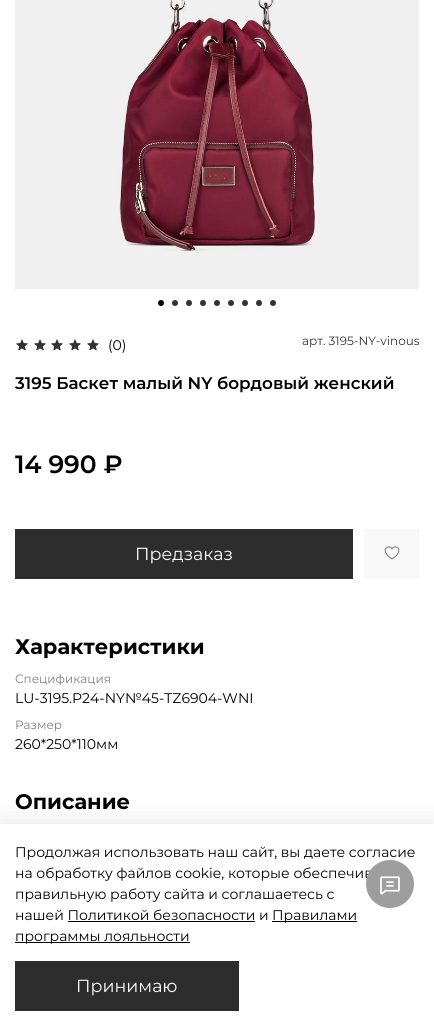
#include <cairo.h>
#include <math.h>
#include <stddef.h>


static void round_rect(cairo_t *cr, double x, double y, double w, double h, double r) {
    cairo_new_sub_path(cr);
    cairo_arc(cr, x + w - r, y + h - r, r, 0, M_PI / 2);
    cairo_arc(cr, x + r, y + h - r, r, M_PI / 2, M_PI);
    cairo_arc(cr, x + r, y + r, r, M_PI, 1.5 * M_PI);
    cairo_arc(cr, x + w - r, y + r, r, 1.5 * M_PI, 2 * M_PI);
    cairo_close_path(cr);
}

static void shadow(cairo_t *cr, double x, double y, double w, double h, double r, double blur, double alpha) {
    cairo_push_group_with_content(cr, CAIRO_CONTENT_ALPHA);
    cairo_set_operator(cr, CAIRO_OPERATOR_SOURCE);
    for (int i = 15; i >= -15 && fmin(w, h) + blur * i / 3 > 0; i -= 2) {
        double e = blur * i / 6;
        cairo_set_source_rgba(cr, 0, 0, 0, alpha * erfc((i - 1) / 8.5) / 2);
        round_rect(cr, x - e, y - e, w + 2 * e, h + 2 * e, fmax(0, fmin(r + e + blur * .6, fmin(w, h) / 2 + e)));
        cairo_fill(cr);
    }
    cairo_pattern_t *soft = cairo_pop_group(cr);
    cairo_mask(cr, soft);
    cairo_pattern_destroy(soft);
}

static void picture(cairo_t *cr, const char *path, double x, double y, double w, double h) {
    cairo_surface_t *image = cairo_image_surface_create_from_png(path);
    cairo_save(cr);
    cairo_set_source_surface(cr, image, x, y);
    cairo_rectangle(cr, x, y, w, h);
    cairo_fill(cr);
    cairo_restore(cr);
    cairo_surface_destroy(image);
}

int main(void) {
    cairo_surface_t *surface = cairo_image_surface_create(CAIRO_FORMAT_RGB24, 434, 1028);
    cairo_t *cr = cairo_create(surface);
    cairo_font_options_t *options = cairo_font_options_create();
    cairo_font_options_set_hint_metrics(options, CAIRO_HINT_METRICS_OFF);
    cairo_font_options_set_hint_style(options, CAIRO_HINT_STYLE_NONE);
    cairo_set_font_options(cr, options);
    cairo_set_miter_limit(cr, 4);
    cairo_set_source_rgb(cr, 1, 1, 1);
    cairo_paint(cr);
    picture(cr, "img1.png", 15, 0, 404, 289);
    cairo_set_source_rgb(cr, 0, 0, 0);
    cairo_arc(cr, 161, 303, 3, 0, 2 * M_PI);
    cairo_fill(cr);
    cairo_set_source_rgb(cr, 0.2, 0.2, 0.2);
    cairo_arc(cr, 175, 303, 3, 0, 2 * M_PI);
    cairo_fill(cr);
    cairo_arc(cr, 189, 303, 3, 0, 2 * M_PI);
    cairo_fill(cr);
    cairo_arc(cr, 203, 303, 3, 0, 2 * M_PI);
    cairo_fill(cr);
    cairo_arc(cr, 217, 303, 3, 0, 2 * M_PI);
    cairo_fill(cr);
    cairo_arc(cr, 231, 303, 3, 0, 2 * M_PI);
    cairo_fill(cr);
    cairo_arc(cr, 245, 303, 3, 0, 2 * M_PI);
    cairo_fill(cr);
    cairo_arc(cr, 259, 303, 3, 0, 2 * M_PI);
    cairo_fill(cr);
    cairo_arc(cr, 273, 303, 3, 0, 2 * M_PI);
    cairo_fill(cr);
    picture(cr, "img2.png", 16, 339, 12, 12);
    picture(cr, "img2.png", 34, 339, 12, 12);
    picture(cr, "img2.png", 51, 339, 12, 12);
    picture(cr, "img2.png", 69, 339, 12, 12);
    picture(cr, "img2.png", 87, 339, 12, 12);
    cairo_select_font_face(cr, "Montserrat", CAIRO_FONT_SLANT_NORMAL, CAIRO_FONT_WEIGHT_NORMAL);
    cairo_set_font_size(cr, 14);
    cairo_set_source_rgb(cr, 0, 0, 0);
    cairo_move_to(cr, 108, 350);
    cairo_show_text(cr, "(0)");
    cairo_set_font_size(cr, 12);
    cairo_set_source_rgb(cr, 0.2, 0.2, 0.2);
    cairo_move_to(cr, 302, 345);
    cairo_show_text(cr, "арт. 3195-NY-vinous");
    cairo_select_font_face(cr, "Montserrat SemiBold", CAIRO_FONT_SLANT_NORMAL, CAIRO_FONT_WEIGHT_NORMAL);
    cairo_set_font_size(cr, 16.8);
    cairo_set_source_rgb(cr, 0, 0, 0);
    cairo_move_to(cr, 15, 389);
    cairo_show_text(cr, "3195 Баскет малый NY бордовый женский");
    cairo_set_font_size(cr, 25);
    cairo_move_to(cr, 15, 473);
    cairo_show_text(cr, "14 990 ₽");
    cairo_set_source_rgb(cr, 0.176, 0.176, 0.176);
    cairo_rectangle(cr, 15, 529, 338, 50);
    cairo_fill(cr);
    cairo_select_font_face(cr, "Montserrat", CAIRO_FONT_SLANT_NORMAL, CAIRO_FONT_WEIGHT_NORMAL);
    cairo_set_font_size(cr, 17.5);
    cairo_set_source_rgb(cr, 1, 1, 1);
    cairo_move_to(cr, 135, 560);
    cairo_show_text(cr, "Предзаказ");
    cairo_set_source_rgb(cr, 0.969, 0.969, 0.969);
    cairo_rectangle(cr, 364, 529, 55, 50);
    cairo_fill(cr);
    picture(cr, "img3.png", 384, 546, 16, 14);
    cairo_select_font_face(cr, "Montserrat", CAIRO_FONT_SLANT_NORMAL, CAIRO_FONT_WEIGHT_BOLD);
    cairo_set_font_size(cr, 21);
    cairo_set_source_rgb(cr, 0, 0, 0);
    cairo_move_to(cr, 15, 654);
    cairo_show_text(cr, "Характеристики");
    cairo_select_font_face(cr, "Montserrat", CAIRO_FONT_SLANT_NORMAL, CAIRO_FONT_WEIGHT_NORMAL);
    cairo_set_font_size(cr, 12);
    cairo_set_source_rgb(cr, 0.502, 0.502, 0.502);
    cairo_move_to(cr, 15, 683);
    cairo_show_text(cr, "Спецификация");
    cairo_set_font_size(cr, 14);
    cairo_set_source_rgb(cr, 0, 0, 0);
    cairo_move_to(cr, 15, 703);
    cairo_show_text(cr, "LU-3195.P24-NY№45-TZ6904-WNI");
    cairo_set_font_size(cr, 12);
    cairo_set_source_rgb(cr, 0.502, 0.502, 0.502);
    cairo_move_to(cr, 15, 729);
    cairo_show_text(cr, "Размер");
    cairo_set_font_size(cr, 14);
    cairo_set_source_rgb(cr, 0, 0, 0);
    cairo_move_to(cr, 15, 749);
    cairo_show_text(cr, "260*250*110мм");
    cairo_select_font_face(cr, "Montserrat", CAIRO_FONT_SLANT_NORMAL, CAIRO_FONT_WEIGHT_BOLD);
    cairo_set_font_size(cr, 21);
    cairo_move_to(cr, 15, 809);
    cairo_show_text(cr, "Описание");
    cairo_set_source_rgb(cr, 0, 0, 0);
    shadow(cr, -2, 821, 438, 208, 0, 11.5, 0.09);
    cairo_set_source_rgb(cr, 1, 1, 1);
    cairo_rectangle(cr, 0, 824, 434, 204);
    cairo_fill(cr);
    cairo_select_font_face(cr, "Montserrat", CAIRO_FONT_SLANT_NORMAL, CAIRO_FONT_WEIGHT_NORMAL);
    cairo_set_font_size(cr, 14);
    cairo_set_source_rgb(cr, 0, 0, 0);
    cairo_move_to(cr, 15, 857);
    cairo_show_text(cr, "Продолжая использовать наш сайт, вы даете согласие");
    cairo_move_to(cr, 15, 878);
    cairo_show_text(cr, "на обработку файлов cookie, которые обеспечив");
    cairo_move_to(cr, 15, 899);
    cairo_show_text(cr, "правильную работу сайта и соглашаетесь с");
    cairo_move_to(cr, 15, 920);
    cairo_show_text(cr, "нашей Политикой безопасности и");
    cairo_rectangle(cr, 272, 921, 85, 1);
    cairo_fill(cr);
    cairo_move_to(cr, 272, 920);
    cairo_show_text(cr, "Правилами");
    cairo_rectangle(cr, 68, 921, 187, 1);
    cairo_fill(cr);
    cairo_rectangle(cr, 15, 942, 175, 1);
    cairo_fill(cr);
    cairo_move_to(cr, 15, 941);
    cairo_show_text(cr, "программы лояльности");
    cairo_set_source_rgb(cr, 0.176, 0.176, 0.176);
    cairo_rectangle(cr, 15, 961, 224, 50);
    cairo_fill(cr);
    cairo_set_font_size(cr, 17.5);
    cairo_set_source_rgb(cr, 1, 1, 1);
    cairo_move_to(cr, 76, 992);
    cairo_show_text(cr, "Принимаю");
    cairo_set_source_rgb(cr, 0.62, 0.62, 0.62);
    cairo_new_path(cr);
    cairo_arc(cr, 390, 884, 24, 0, 2 * M_PI);
    cairo_fill(cr);
    picture(cr, "img4.png", 380, 876, 20, 19);
    cairo_surface_write_to_png(surface, "page.png");
    cairo_font_options_destroy(options);
    cairo_destroy(cr);
    cairo_surface_destroy(surface);
    return 0;
}
